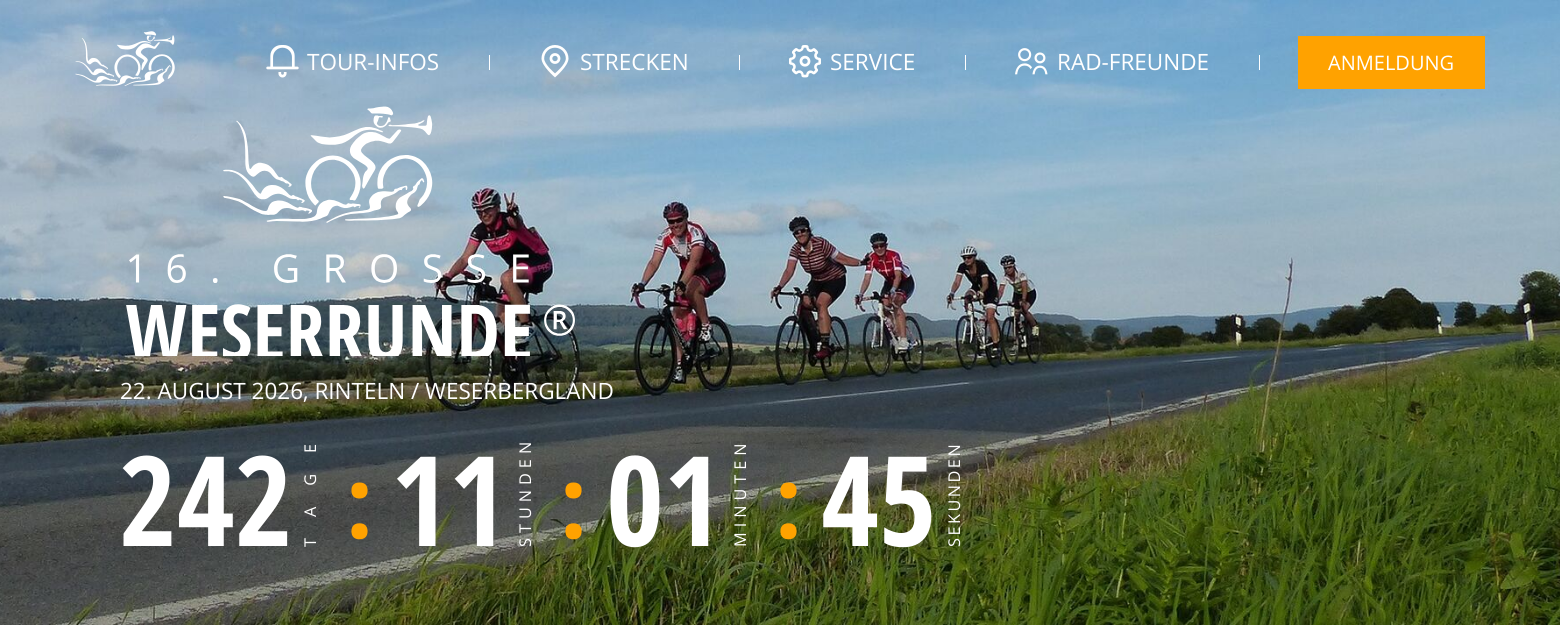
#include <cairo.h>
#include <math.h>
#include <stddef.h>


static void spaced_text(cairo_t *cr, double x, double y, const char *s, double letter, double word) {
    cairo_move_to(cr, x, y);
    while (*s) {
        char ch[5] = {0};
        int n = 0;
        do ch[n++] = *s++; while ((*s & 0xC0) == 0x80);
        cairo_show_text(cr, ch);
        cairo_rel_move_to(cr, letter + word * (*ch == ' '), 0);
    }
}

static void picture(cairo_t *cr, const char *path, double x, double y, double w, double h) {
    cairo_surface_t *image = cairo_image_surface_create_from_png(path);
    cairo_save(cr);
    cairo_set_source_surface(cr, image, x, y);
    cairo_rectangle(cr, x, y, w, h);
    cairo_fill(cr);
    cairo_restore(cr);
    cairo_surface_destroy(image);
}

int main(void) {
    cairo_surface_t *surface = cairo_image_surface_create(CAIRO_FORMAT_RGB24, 1560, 638);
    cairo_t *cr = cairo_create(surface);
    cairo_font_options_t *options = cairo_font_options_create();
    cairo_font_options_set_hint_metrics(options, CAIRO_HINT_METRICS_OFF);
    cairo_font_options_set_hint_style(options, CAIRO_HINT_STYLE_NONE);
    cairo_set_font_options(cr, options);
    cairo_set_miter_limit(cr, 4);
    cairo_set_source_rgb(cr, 1, 1, 1);
    cairo_paint(cr);
    picture(cr, "img6.png", 0, 0, 1560, 625);
    picture(cr, "img1.png", 75, 31, 100, 55);
    picture(cr, "img2.png", 266, 45, 33, 33);
    cairo_select_font_face(cr, "Open Sans", CAIRO_FONT_SLANT_NORMAL, CAIRO_FONT_WEIGHT_NORMAL);
    cairo_set_font_size(cr, 22.5);
    cairo_set_source_rgb(cr, 1, 1, 1);
    cairo_move_to(cr, 307, 70);
    cairo_show_text(cr, "TOUR-INFOS");
    cairo_rectangle(cr, 489, 55, 1, 15);
    cairo_fill(cr);
    picture(cr, "img3.png", 541, 45, 28, 33);
    cairo_move_to(cr, 580, 70);
    cairo_show_text(cr, "STRECKEN");
    cairo_rectangle(cr, 739, 55, 1, 15);
    cairo_fill(cr);
    picture(cr, "img4.png", 789, 45, 32, 33);
    cairo_move_to(cr, 830, 70);
    cairo_show_text(cr, "SERVICE");
    cairo_rectangle(cr, 965, 55, 1, 15);
    cairo_fill(cr);
    picture(cr, "img5.png", 1015, 48, 33, 27);
    cairo_move_to(cr, 1057, 70);
    cairo_show_text(cr, "RAD-FREUNDE");
    cairo_rectangle(cr, 1259, 55, 1, 15);
    cairo_fill(cr);
    cairo_set_source_rgb(cr, 1, 0.635, 0);
    cairo_rectangle(cr, 1298, 36, 187, 53);
    cairo_fill(cr);
    cairo_set_font_size(cr, 20);
    cairo_set_source_rgb(cr, 1, 1, 1);
    cairo_move_to(cr, 1328, 70);
    cairo_show_text(cr, "ANMELDUNG");
    picture(cr, "img7.png", 126, 106, 449, 250);
    cairo_set_font_size(cr, 22.5);
    cairo_move_to(cr, 120, 399);
    cairo_show_text(cr, "22. AUGUST 2026, RINTELN / WESERBERGLAND");
    cairo_select_font_face(cr, "Open Sans Condensed", CAIRO_FONT_SLANT_NORMAL, CAIRO_FONT_WEIGHT_BOLD);
    cairo_set_font_size(cr, 125);
    cairo_move_to(cr, 119, 546);
    cairo_show_text(cr, "242");
    cairo_select_font_face(cr, "Open Sans", CAIRO_FONT_SLANT_NORMAL, CAIRO_FONT_WEIGHT_NORMAL);
    cairo_set_font_size(cr, 16.25);
    cairo_save(cr);
    cairo_translate(cr, 316, 547);
    cairo_rotate(cr, -90 * M_PI / 180);
    spaced_text(cr, 0, 0, "TAGE", 21, 0);
    cairo_restore(cr);
    cairo_select_font_face(cr, "Open Sans Condensed", CAIRO_FONT_SLANT_NORMAL, CAIRO_FONT_WEIGHT_BOLD);
    cairo_set_font_size(cr, 100);
    cairo_set_source_rgb(cr, 1, 0.635, 0);
    cairo_move_to(cr, 346, 538);
    cairo_show_text(cr, ":");
    cairo_set_font_size(cr, 125);
    cairo_set_source_rgb(cr, 1, 1, 1);
    cairo_move_to(cr, 391, 546);
    cairo_show_text(cr, "11");
    cairo_select_font_face(cr, "Open Sans", CAIRO_FONT_SLANT_NORMAL, CAIRO_FONT_WEIGHT_NORMAL);
    cairo_set_font_size(cr, 16.25);
    cairo_save(cr);
    cairo_translate(cr, 531, 547);
    cairo_rotate(cr, -90 * M_PI / 180);
    spaced_text(cr, 0, 0, "STUNDEN", 5, 0);
    cairo_restore(cr);
    cairo_select_font_face(cr, "Open Sans Condensed", CAIRO_FONT_SLANT_NORMAL, CAIRO_FONT_WEIGHT_BOLD);
    cairo_set_font_size(cr, 100);
    cairo_set_source_rgb(cr, 1, 0.635, 0);
    cairo_move_to(cr, 560, 538);
    cairo_show_text(cr, ":");
    cairo_set_font_size(cr, 125);
    cairo_set_source_rgb(cr, 1, 1, 1);
    cairo_move_to(cr, 606, 546);
    cairo_show_text(cr, "01");
    cairo_select_font_face(cr, "Open Sans", CAIRO_FONT_SLANT_NORMAL, CAIRO_FONT_WEIGHT_NORMAL);
    cairo_set_font_size(cr, 16.25);
    cairo_save(cr);
    cairo_translate(cr, 746, 547);
    cairo_rotate(cr, -90 * M_PI / 180);
    spaced_text(cr, 0, 0, "MINUTEN", 5, 0);
    cairo_restore(cr);
    cairo_select_font_face(cr, "Open Sans Condensed", CAIRO_FONT_SLANT_NORMAL, CAIRO_FONT_WEIGHT_BOLD);
    cairo_set_font_size(cr, 100);
    cairo_set_source_rgb(cr, 1, 0.635, 0);
    cairo_move_to(cr, 775, 538);
    cairo_show_text(cr, ":");
    cairo_set_font_size(cr, 125);
    cairo_set_source_rgb(cr, 1, 1, 1);
    cairo_move_to(cr, 821, 546);
    cairo_show_text(cr, "45");
    cairo_select_font_face(cr, "Open Sans", CAIRO_FONT_SLANT_NORMAL, CAIRO_FONT_WEIGHT_NORMAL);
    cairo_set_font_size(cr, 16.25);
    cairo_save(cr);
    cairo_translate(cr, 960, 547);
    cairo_rotate(cr, -90 * M_PI / 180);
    spaced_text(cr, 0, 0, "SEKUNDEN", 2.5, 0);
    cairo_restore(cr);
    cairo_surface_write_to_png(surface, "page.png");
    cairo_font_options_destroy(options);
    cairo_destroy(cr);
    cairo_surface_destroy(surface);
    return 0;
}
